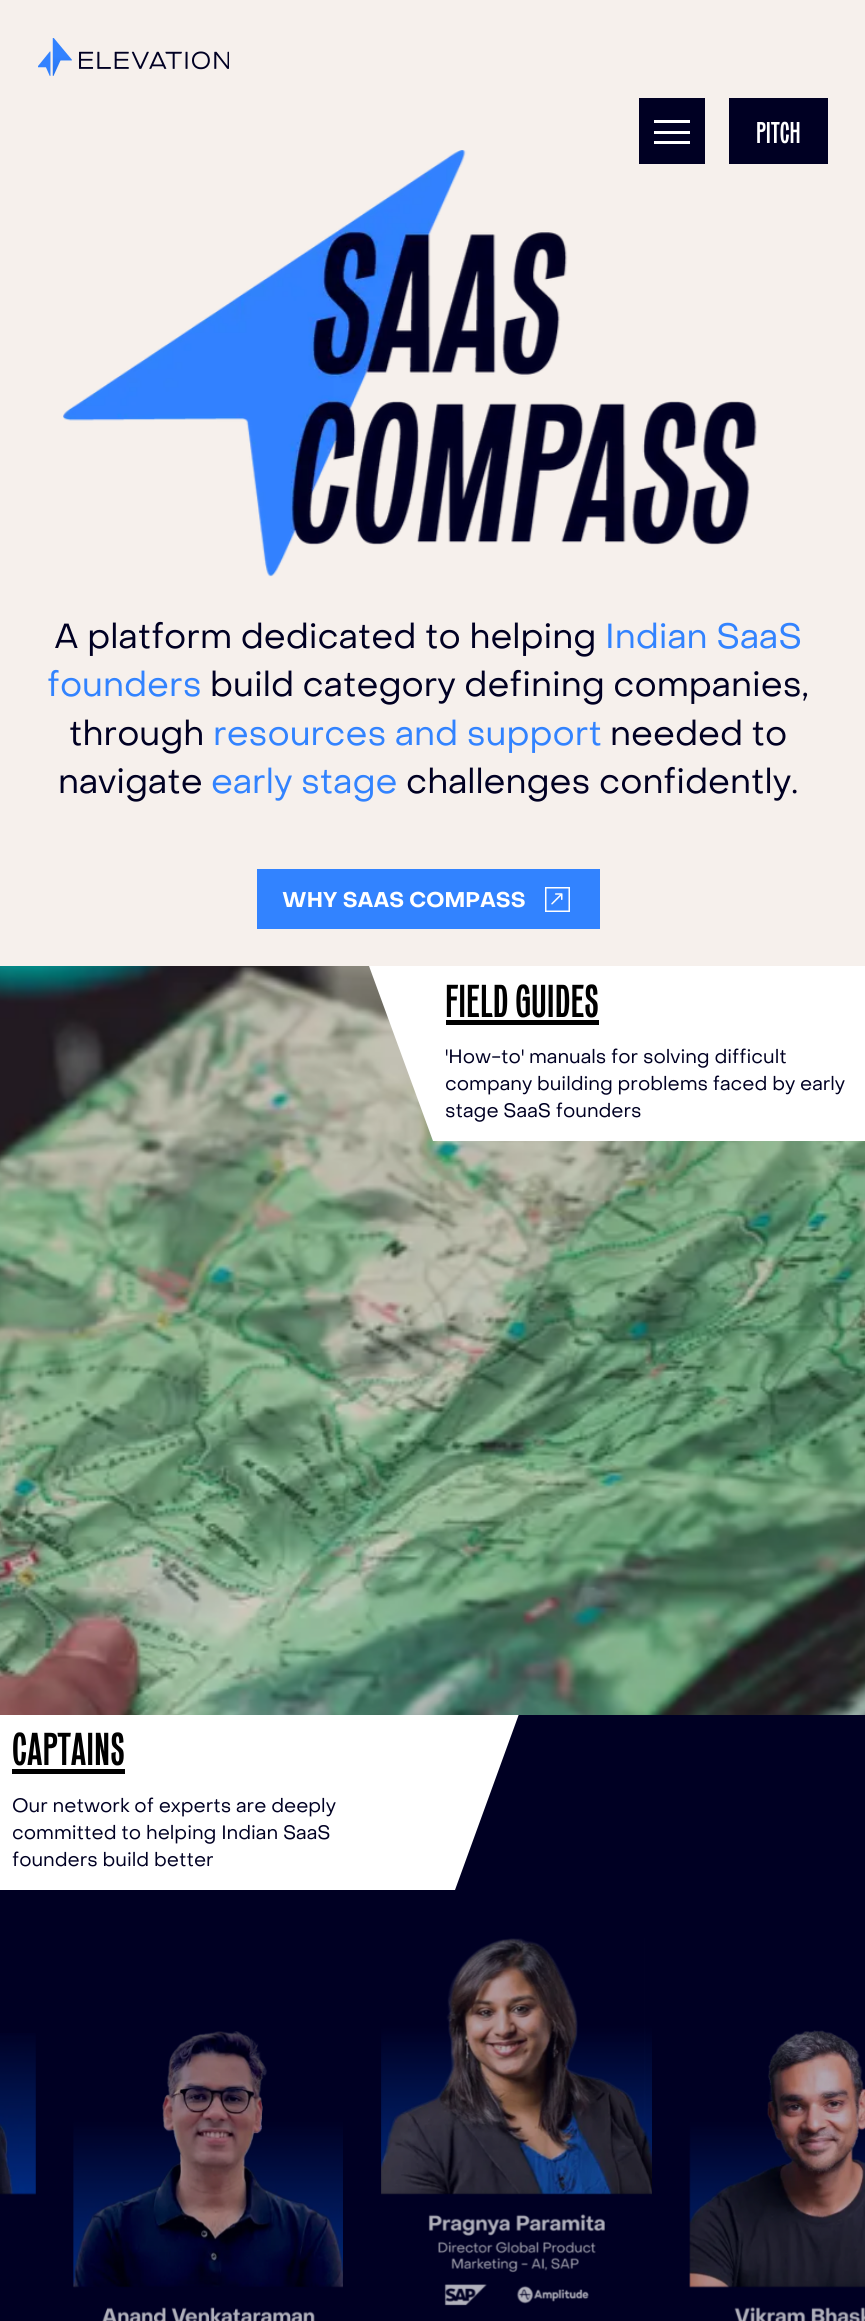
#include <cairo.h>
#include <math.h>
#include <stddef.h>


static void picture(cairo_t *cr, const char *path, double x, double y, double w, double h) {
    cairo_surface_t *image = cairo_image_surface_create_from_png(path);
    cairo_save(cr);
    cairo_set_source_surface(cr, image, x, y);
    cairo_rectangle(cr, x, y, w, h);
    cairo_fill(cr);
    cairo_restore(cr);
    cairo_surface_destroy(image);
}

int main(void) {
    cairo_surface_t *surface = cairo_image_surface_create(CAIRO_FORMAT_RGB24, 865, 2321);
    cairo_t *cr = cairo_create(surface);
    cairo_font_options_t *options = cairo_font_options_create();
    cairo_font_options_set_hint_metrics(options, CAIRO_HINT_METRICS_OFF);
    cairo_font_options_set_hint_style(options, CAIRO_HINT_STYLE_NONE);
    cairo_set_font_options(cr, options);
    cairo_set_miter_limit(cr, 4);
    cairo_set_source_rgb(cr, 0.961, 0.941, 0.922);
    cairo_paint(cr);
    picture(cr, "img1.png", 38, 38, 191, 38);
    picture(cr, "img2.png", 63, 150, 694, 427);
    cairo_set_source_rgb(cr, 0, 0, 0.137);
    cairo_rectangle(cr, 639, 98, 66, 66);
    cairo_fill(cr);
    cairo_set_source_rgb(cr, 1, 1, 1);
    cairo_rectangle(cr, 654, 120, 36, 3);
    cairo_fill(cr);
    cairo_rectangle(cr, 654, 131, 36, 3);
    cairo_fill(cr);
    cairo_rectangle(cr, 654, 141, 36, 3);
    cairo_fill(cr);
    cairo_set_source_rgb(cr, 0, 0, 0.137);
    cairo_rectangle(cr, 729, 98, 99, 66);
    cairo_fill(cr);
    cairo_select_font_face(cr, "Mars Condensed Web", CAIRO_FONT_SLANT_NORMAL, CAIRO_FONT_WEIGHT_NORMAL);
    cairo_set_font_size(cr, 30);
    cairo_set_source_rgb(cr, 1, 1, 1);
    cairo_move_to(cr, 756, 143);
    cairo_show_text(cr, "PITCH");
    cairo_select_font_face(cr, "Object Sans", CAIRO_FONT_SLANT_NORMAL, CAIRO_FONT_WEIGHT_NORMAL);
    cairo_set_font_size(cr, 34.6);
    cairo_set_source_rgb(cr, 0, 0, 0.137);
    cairo_move_to(cr, 54, 648);
    cairo_show_text(cr, "A platform dedicated to helping");
    cairo_set_source_rgb(cr, 0.196, 0.514, 1);
    cairo_move_to(cr, 605, 648);
    cairo_show_text(cr, "Indian SaaS");
    cairo_move_to(cr, 47, 696);
    cairo_show_text(cr, "founders");
    cairo_set_source_rgb(cr, 0, 0, 0.137);
    cairo_move_to(cr, 210, 696);
    cairo_show_text(cr, "build category defining companies,");
    cairo_move_to(cr, 69, 745);
    cairo_show_text(cr, "through");
    cairo_set_source_rgb(cr, 0.196, 0.514, 1);
    cairo_move_to(cr, 213, 745);
    cairo_show_text(cr, "resources and support");
    cairo_set_source_rgb(cr, 0, 0, 0.137);
    cairo_move_to(cr, 610, 745);
    cairo_show_text(cr, "needed to");
    cairo_move_to(cr, 58, 793);
    cairo_show_text(cr, "navigate");
    cairo_set_source_rgb(cr, 0.196, 0.514, 1);
    cairo_move_to(cr, 211, 793);
    cairo_show_text(cr, "early stage");
    cairo_set_source_rgb(cr, 0, 0, 0.137);
    cairo_move_to(cr, 406, 793);
    cairo_show_text(cr, "challenges confidently.");
    cairo_set_source_rgb(cr, 0.196, 0.514, 1);
    cairo_rectangle(cr, 257, 869, 343, 60);
    cairo_fill(cr);
    cairo_select_font_face(cr, "Object Sans", CAIRO_FONT_SLANT_NORMAL, CAIRO_FONT_WEIGHT_BOLD);
    cairo_set_font_size(cr, 21);
    cairo_set_source_rgb(cr, 1, 1, 1);
    cairo_move_to(cr, 282, 907);
    cairo_show_text(cr, "WHY SAAS COMPASS");
    picture(cr, "img3.png", 545, 887, 25, 25);
    picture(cr, "img4.png", 0, 966, 865, 749);
    cairo_new_path(cr);
    cairo_move_to(cr, 369, 966);
    cairo_line_to(cr, 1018, 966);
    cairo_line_to(cr, 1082, 1141);
    cairo_line_to(cr, 433, 1141);
    cairo_close_path(cr);
    cairo_fill(cr);
    cairo_select_font_face(cr, "Mars Condensed Web", CAIRO_FONT_SLANT_NORMAL, CAIRO_FONT_WEIGHT_NORMAL);
    cairo_set_font_size(cr, 46);
    cairo_set_source_rgb(cr, 0, 0, 0);
    cairo_move_to(cr, 445, 1017);
    cairo_show_text(cr, "FIELD GUIDES");
    cairo_rectangle(cr, 446, 1020, 153, 5);
    cairo_fill(cr);
    cairo_select_font_face(cr, "Object Sans", CAIRO_FONT_SLANT_NORMAL, CAIRO_FONT_WEIGHT_NORMAL);
    cairo_set_font_size(cr, 19.2);
    cairo_set_source_rgb(cr, 0, 0, 0.137);
    cairo_move_to(cr, 445, 1063);
    cairo_show_text(cr, "'How-to' manuals for solving difficult");
    cairo_move_to(cr, 445, 1090);
    cairo_show_text(cr, "company building problems faced by early");
    cairo_move_to(cr, 445, 1117);
    cairo_show_text(cr, "stage SaaS founders");
    cairo_rectangle(cr, 0, 1715, 865, 606);
    cairo_fill(cr);
    cairo_save(cr);
    cairo_rectangle(cr, 0, 1715, 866, 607);
    cairo_clip(cr);
    cairo_set_source_rgb(cr, 1, 1, 1);
    cairo_new_path(cr);
    cairo_move_to(cr, 0, 1714);
    cairo_line_to(cr, 519, 1714);
    cairo_line_to(cr, 455, 1890);
    cairo_line_to(cr, -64, 1890);
    cairo_close_path(cr);
    cairo_fill(cr);
    cairo_restore(cr);
    cairo_select_font_face(cr, "Mars Condensed Web", CAIRO_FONT_SLANT_NORMAL, CAIRO_FONT_WEIGHT_NORMAL);
    cairo_set_font_size(cr, 46);
    cairo_set_source_rgb(cr, 0, 0, 0);
    cairo_move_to(cr, 12, 1765);
    cairo_show_text(cr, "CAPTAINS");
    cairo_rectangle(cr, 12, 1769, 113, 5);
    cairo_fill(cr);
    cairo_select_font_face(cr, "Object Sans", CAIRO_FONT_SLANT_NORMAL, CAIRO_FONT_WEIGHT_NORMAL);
    cairo_set_font_size(cr, 19.2);
    cairo_set_source_rgb(cr, 0, 0, 0.137);
    cairo_move_to(cr, 12, 1812);
    cairo_show_text(cr, "Our network of experts are deeply");
    cairo_move_to(cr, 12, 1839);
    cairo_show_text(cr, "committed to helping Indian SaaS");
    cairo_move_to(cr, 12, 1866);
    cairo_show_text(cr, "founders build better");
    picture(cr, "img5.png", 0, 2033, 36, 162);
    picture(cr, "img6.png", 73, 2031, 270, 290);
    picture(cr, "img7.png", 381, 1938, 271, 368);
    picture(cr, "img8.png", 689, 2030, 176, 291);
    cairo_surface_write_to_png(surface, "page.png");
    cairo_font_options_destroy(options);
    cairo_destroy(cr);
    cairo_surface_destroy(surface);
    return 0;
}
